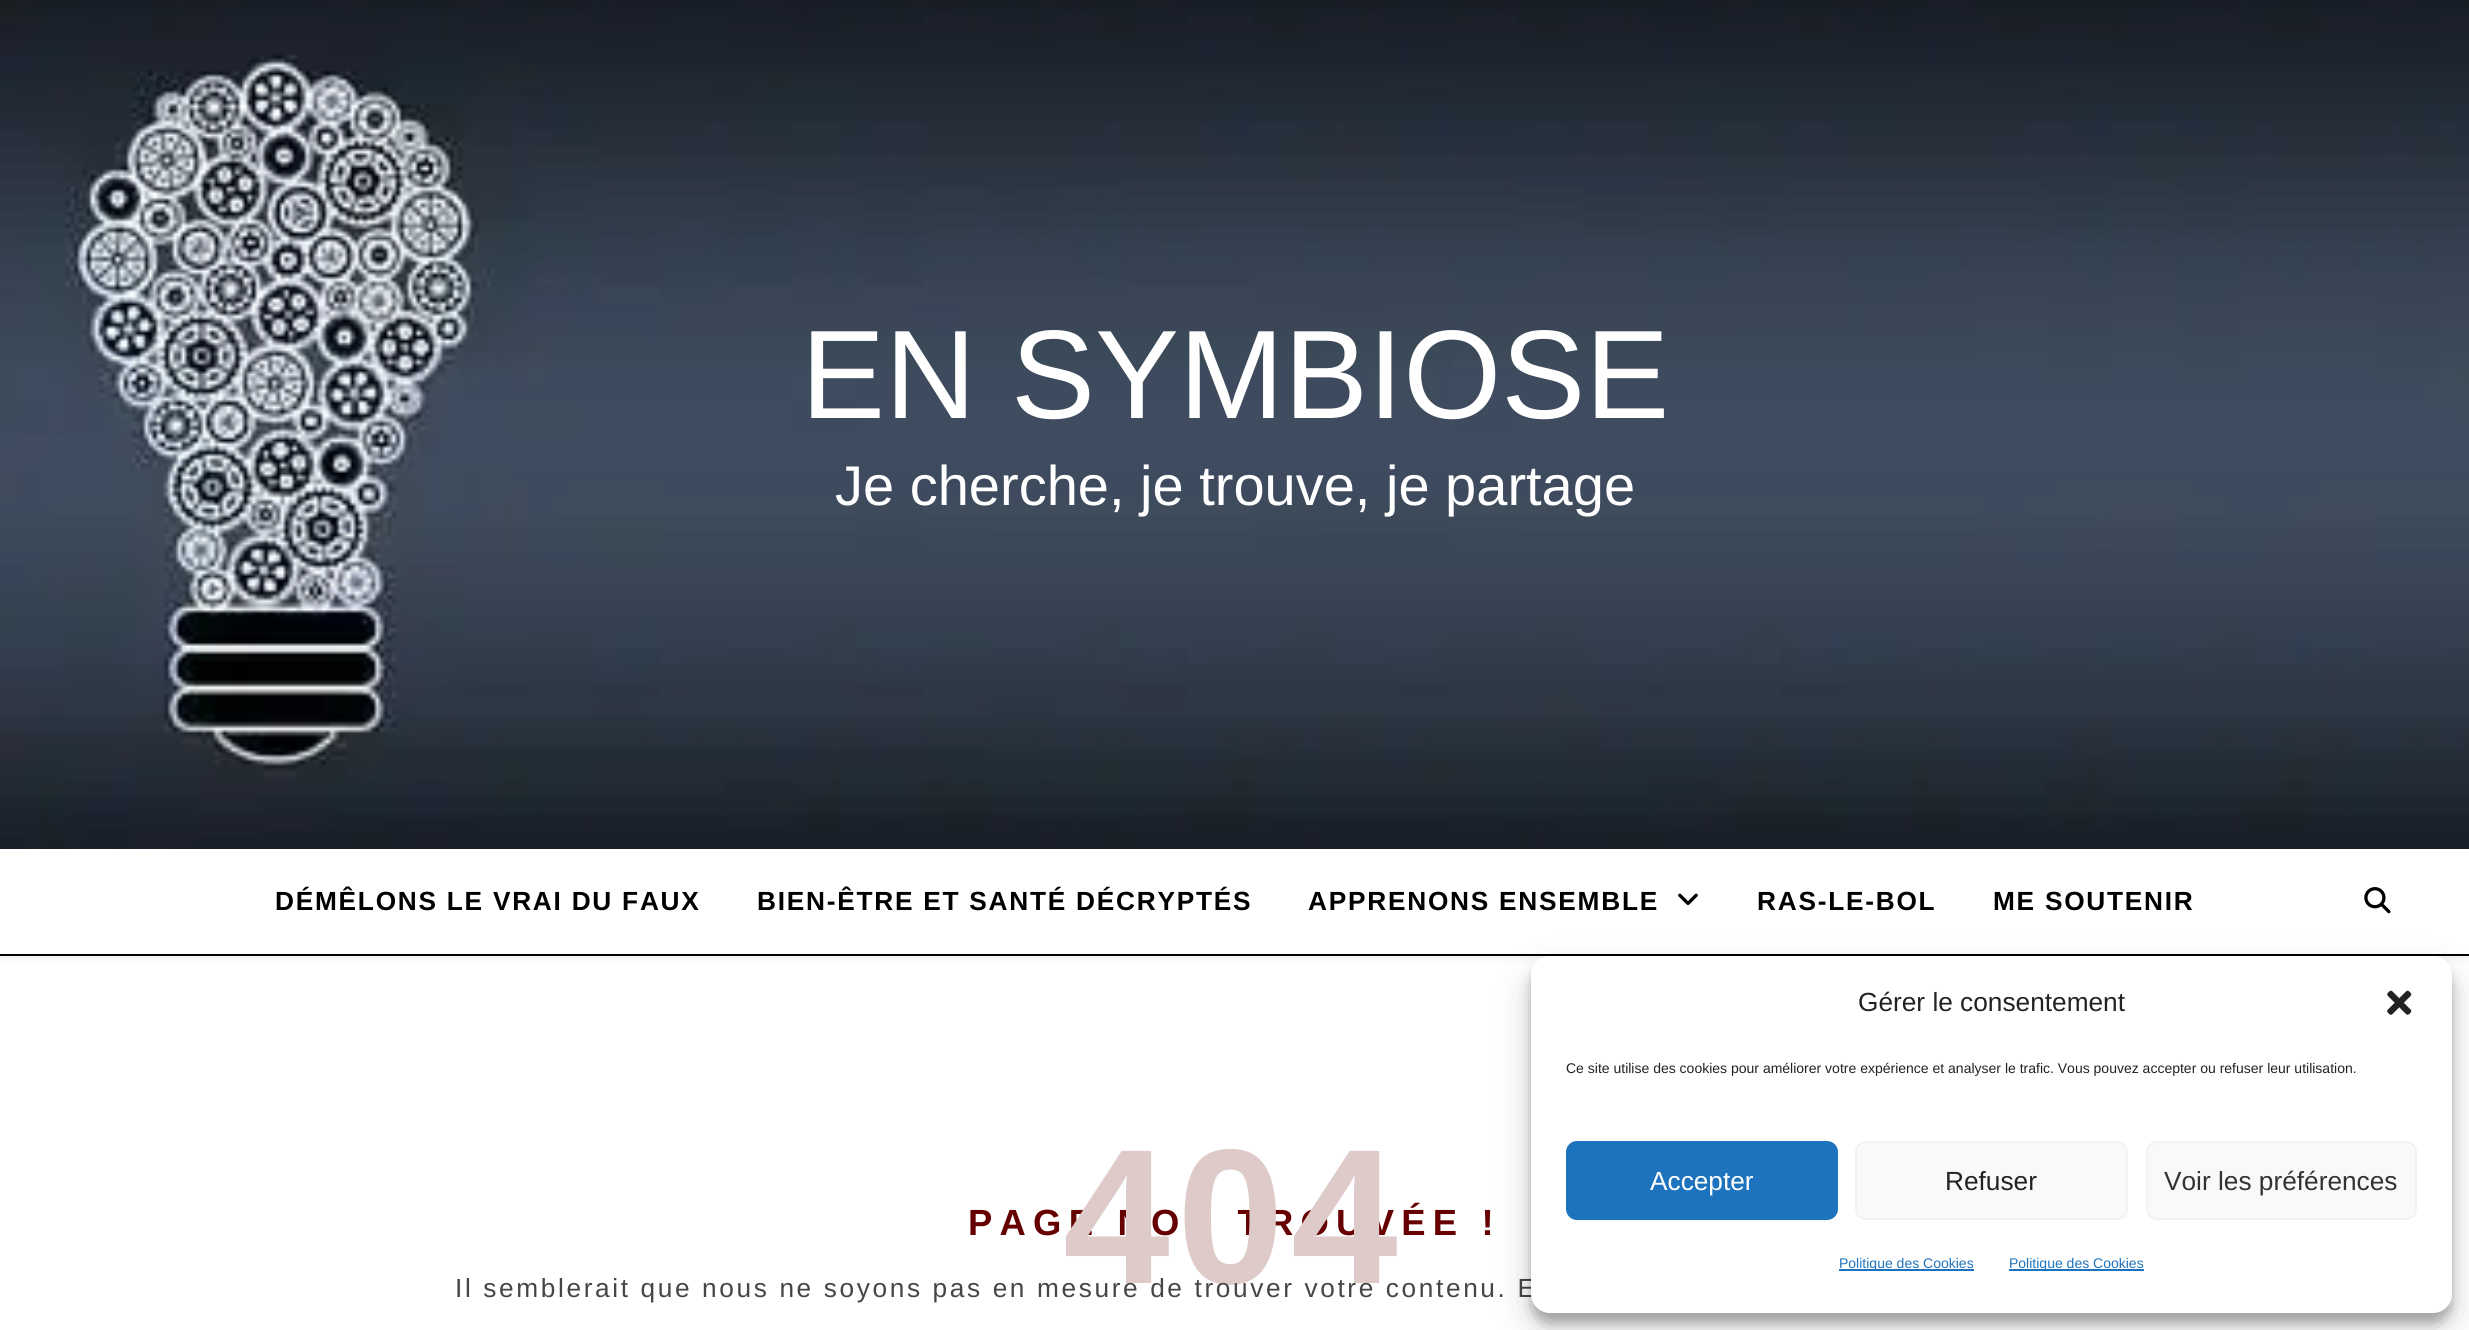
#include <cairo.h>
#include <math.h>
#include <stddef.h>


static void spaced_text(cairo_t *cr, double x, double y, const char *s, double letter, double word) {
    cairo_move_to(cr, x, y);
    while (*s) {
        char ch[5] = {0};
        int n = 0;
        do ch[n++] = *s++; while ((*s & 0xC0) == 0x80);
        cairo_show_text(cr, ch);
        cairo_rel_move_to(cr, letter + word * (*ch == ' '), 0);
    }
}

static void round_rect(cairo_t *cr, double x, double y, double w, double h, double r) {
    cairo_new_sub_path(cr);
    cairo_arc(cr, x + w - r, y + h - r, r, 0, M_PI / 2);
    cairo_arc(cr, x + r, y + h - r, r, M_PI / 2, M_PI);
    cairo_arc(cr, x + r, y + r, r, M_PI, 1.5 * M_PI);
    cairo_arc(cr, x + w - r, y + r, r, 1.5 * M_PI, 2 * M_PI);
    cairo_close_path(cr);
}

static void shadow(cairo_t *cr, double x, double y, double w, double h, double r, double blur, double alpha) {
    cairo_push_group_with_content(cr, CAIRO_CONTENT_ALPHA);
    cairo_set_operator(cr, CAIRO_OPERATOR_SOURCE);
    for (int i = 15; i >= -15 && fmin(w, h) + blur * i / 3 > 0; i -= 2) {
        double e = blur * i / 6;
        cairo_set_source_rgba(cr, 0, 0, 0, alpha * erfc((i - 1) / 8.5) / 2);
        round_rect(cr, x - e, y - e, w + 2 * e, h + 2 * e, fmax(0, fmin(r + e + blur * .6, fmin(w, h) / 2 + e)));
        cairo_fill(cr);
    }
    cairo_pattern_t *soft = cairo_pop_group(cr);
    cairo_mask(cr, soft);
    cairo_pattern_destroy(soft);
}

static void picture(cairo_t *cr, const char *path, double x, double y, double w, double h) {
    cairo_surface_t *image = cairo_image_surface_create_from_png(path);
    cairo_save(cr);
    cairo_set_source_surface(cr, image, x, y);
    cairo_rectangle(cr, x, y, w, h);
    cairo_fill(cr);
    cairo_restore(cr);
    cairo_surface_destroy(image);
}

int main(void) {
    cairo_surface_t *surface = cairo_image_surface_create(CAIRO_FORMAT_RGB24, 2469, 1330);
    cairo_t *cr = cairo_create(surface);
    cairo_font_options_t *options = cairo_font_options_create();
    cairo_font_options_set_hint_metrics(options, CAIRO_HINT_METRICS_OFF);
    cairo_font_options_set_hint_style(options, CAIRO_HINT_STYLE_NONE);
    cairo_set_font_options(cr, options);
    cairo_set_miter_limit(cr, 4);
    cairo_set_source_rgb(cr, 1, 1, 1);
    cairo_paint(cr);
    picture(cr, "img1.png", 0, 0, 2469, 849);
    cairo_select_font_face(cr, "Liberation Sans", CAIRO_FONT_SLANT_NORMAL, CAIRO_FONT_WEIGHT_NORMAL);
    cairo_set_font_size(cr, 126);
    cairo_set_source_rgb(cr, 1, 1, 1);
    cairo_move_to(cr, 801, 418);
    cairo_show_text(cr, "EN SYMBIOSE");
    cairo_set_font_size(cr, 56);
    cairo_move_to(cr, 835, 505);
    cairo_show_text(cr, "Je cherche, je trouve, je partage");
    cairo_set_source_rgb(cr, 0, 0, 0);
    shadow(cr, 0, 851, 2469, 106, 0, 4.5, 0.1);
    cairo_set_source_rgb(cr, 1, 1, 1);
    cairo_rectangle(cr, 0, 849, 2469, 105);
    cairo_fill(cr);
    cairo_set_source_rgb(cr, 0, 0, 0);
    cairo_rectangle(cr, 0, 954, 2469, 2);
    cairo_fill(cr);
    cairo_select_font_face(cr, "Liberation Sans", CAIRO_FONT_SLANT_NORMAL, CAIRO_FONT_WEIGHT_BOLD);
    cairo_set_font_size(cr, 26.25);
    spaced_text(cr, 275, 910, "DÉMÊLONS LE VRAI DU FAUX", 1.75, 0);
    spaced_text(cr, 757, 910, "BIEN-ÊTRE ET SANTÉ DÉCRYPTÉS", 1.75, 0);
    spaced_text(cr, 1308, 910, "APPRENONS ENSEMBLE", 1.75, 0);
    picture(cr, "img2.png", 1678, 893, 20, 12);
    spaced_text(cr, 1757, 910, "RAS-LE-BOL", 1.75, 0);
    spaced_text(cr, 1993, 910, "ME SOUTENIR", 1.75, 0);
    picture(cr, "img3.png", 2364, 887, 27, 27);
    cairo_set_font_size(cr, 36.4);
    cairo_set_source_rgb(cr, 0.4, 0, 0);
    spaced_text(cr, 968, 1235, "PAGE NON TROUVÉE !", 7.25, 0);
    cairo_set_font_size(cr, 192);
    cairo_set_source_rgb(cr, 0.875, 0.792, 0.792);
    spaced_text(cr, 1063, 1283, "404", 7.25, 0);
    cairo_select_font_face(cr, "Liberation Sans", CAIRO_FONT_SLANT_NORMAL, CAIRO_FONT_WEIGHT_NORMAL);
    cairo_set_font_size(cr, 26.25);
    cairo_set_source_rgb(cr, 0.275, 0.275, 0.275);
    spaced_text(cr, 455, 1297, "Il semblerait que nous ne soyons pas en mesure de trouver votre contenu. E", 2.62, 0);
    cairo_set_source_rgb(cr, 0, 0, 0);
    shadow(cr, 1531, 966, 921, 357, 19, 5, 0.23);
    shadow(cr, 1531, 973, 921, 357, 19, 17.5, 0.19);
    cairo_set_source_rgb(cr, 1, 1, 1);
    round_rect(cr, 1531, 956, 921, 357, 19);
    cairo_fill(cr);
    cairo_set_source_rgb(cr, 0.133, 0.133, 0.133);
    cairo_move_to(cr, 1858, 1011);
    cairo_show_text(cr, "Gérer le consentement");
    picture(cr, "img4.png", 2387, 990, 25, 25);
    cairo_set_font_size(cr, 14);
    cairo_move_to(cr, 1566, 1073);
    cairo_show_text(cr, "Ce site utilise des cookies pour améliorer votre expérience et analyser le trafic. Vous pouvez accepter ou refuser leur utilisation.");
    cairo_set_source_rgb(cr, 0.118, 0.451, 0.745);
    round_rect(cr, 1567, 1142, 270, 77, 10);
    cairo_fill_preserve(cr);
    cairo_stroke(cr);
    cairo_set_font_size(cr, 26.25);
    cairo_set_source_rgb(cr, 1, 1, 1);
    cairo_move_to(cr, 1650, 1190);
    cairo_show_text(cr, "Accepter");
    cairo_set_source_rgb(cr, 0.976, 0.976, 0.976);
    round_rect(cr, 1856, 1142, 271, 77, 10);
    cairo_fill_preserve(cr);
    cairo_set_source_rgb(cr, 0.949, 0.949, 0.949);
    cairo_stroke(cr);
    cairo_set_source_rgb(cr, 0.133, 0.133, 0.133);
    cairo_move_to(cr, 1945, 1190);
    cairo_show_text(cr, "Refuser");
    cairo_set_source_rgb(cr, 0.976, 0.976, 0.976);
    round_rect(cr, 2147, 1142, 269, 77, 10);
    cairo_fill_preserve(cr);
    cairo_set_source_rgb(cr, 0.949, 0.949, 0.949);
    cairo_stroke(cr);
    cairo_set_source_rgb(cr, 0.2, 0.2, 0.2);
    cairo_move_to(cr, 2164, 1190);
    cairo_show_text(cr, "Voir les préférences");
    cairo_set_source_rgb(cr, 0.118, 0.451, 0.745);
    cairo_rectangle(cr, 1839, 1269, 135, 2);
    cairo_fill(cr);
    cairo_set_font_size(cr, 14);
    cairo_move_to(cr, 1839, 1268);
    cairo_show_text(cr, "Politique des Cookies");
    cairo_rectangle(cr, 2009, 1269, 135, 2);
    cairo_fill(cr);
    cairo_move_to(cr, 2009, 1268);
    cairo_show_text(cr, "Politique des Cookies");
    cairo_surface_write_to_png(surface, "page.png");
    cairo_font_options_destroy(options);
    cairo_destroy(cr);
    cairo_surface_destroy(surface);
    return 0;
}
